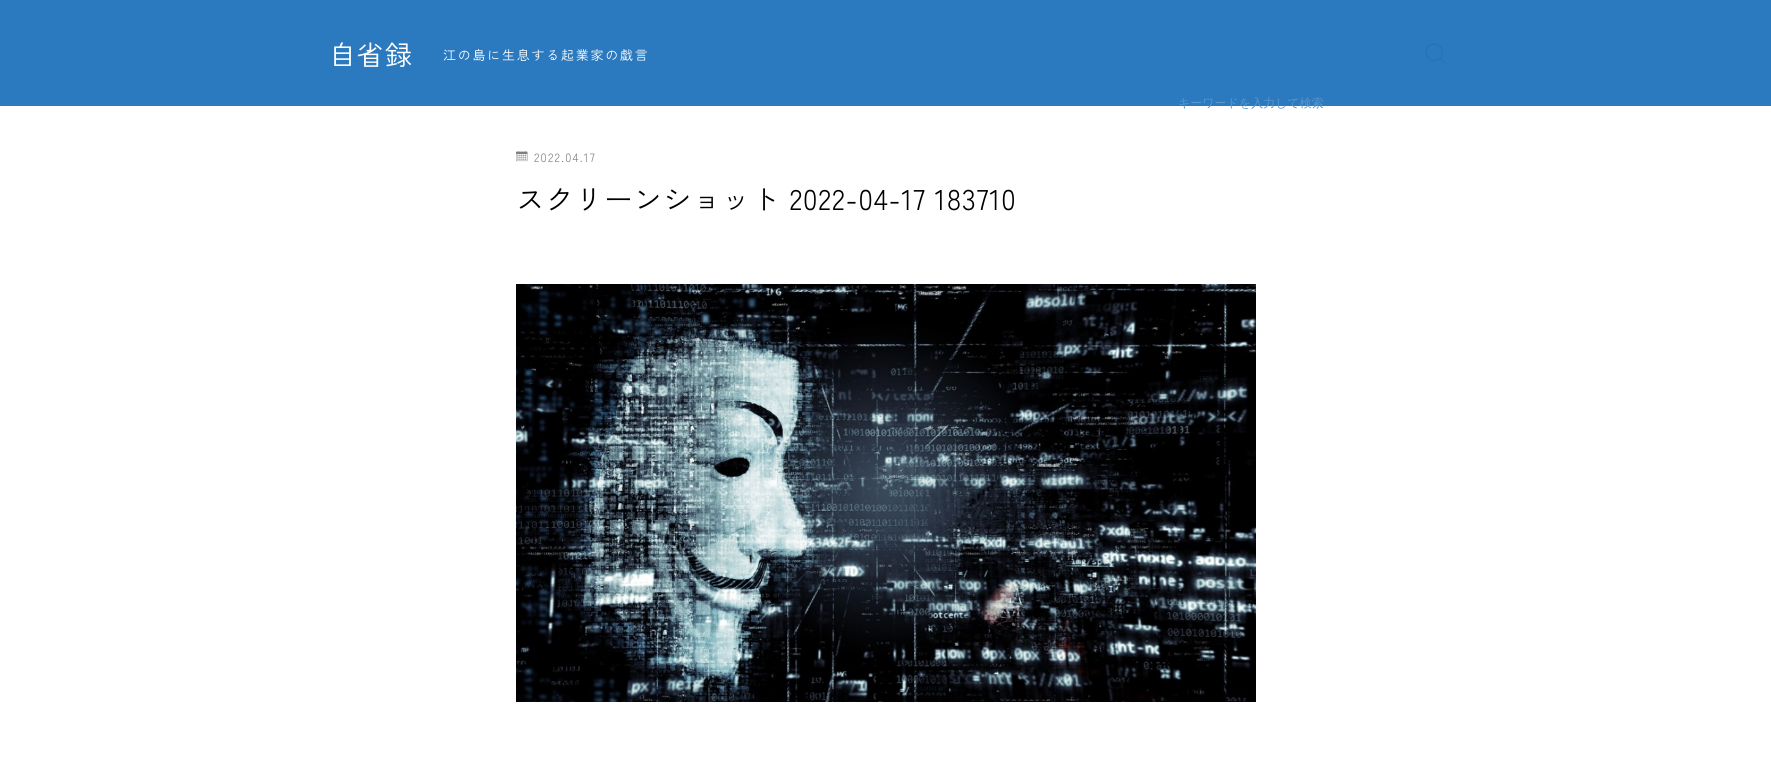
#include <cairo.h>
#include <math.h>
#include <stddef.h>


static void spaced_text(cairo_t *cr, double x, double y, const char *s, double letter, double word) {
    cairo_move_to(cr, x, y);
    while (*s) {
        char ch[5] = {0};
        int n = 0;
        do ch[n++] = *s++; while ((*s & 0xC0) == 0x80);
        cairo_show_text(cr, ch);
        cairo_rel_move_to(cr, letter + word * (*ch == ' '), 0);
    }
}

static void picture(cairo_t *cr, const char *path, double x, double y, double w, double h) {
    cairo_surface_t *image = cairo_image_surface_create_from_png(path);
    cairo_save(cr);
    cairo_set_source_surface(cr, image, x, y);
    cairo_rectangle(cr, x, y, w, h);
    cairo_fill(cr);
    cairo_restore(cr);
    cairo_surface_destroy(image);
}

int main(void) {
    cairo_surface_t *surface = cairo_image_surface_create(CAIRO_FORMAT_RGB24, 1771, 757);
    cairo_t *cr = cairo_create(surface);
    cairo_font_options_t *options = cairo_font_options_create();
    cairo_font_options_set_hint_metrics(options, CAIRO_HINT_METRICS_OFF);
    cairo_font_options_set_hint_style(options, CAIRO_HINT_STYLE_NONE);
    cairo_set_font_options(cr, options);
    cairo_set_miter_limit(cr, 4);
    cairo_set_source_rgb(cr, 1, 1, 1);
    cairo_paint(cr);
    cairo_set_source_rgb(cr, 0.169, 0.478, 0.749);
    cairo_rectangle(cr, 0, 0, 1771, 106);
    cairo_fill(cr);
    cairo_select_font_face(cr, "Zen Kaku Gothic New", CAIRO_FONT_SLANT_NORMAL, CAIRO_FONT_WEIGHT_NORMAL);
    cairo_set_font_size(cr, 27);
    cairo_set_source_rgb(cr, 1, 1, 1);
    spaced_text(cr, 329, 65, "自省録", 1, 0);
    cairo_set_font_size(cr, 13);
    spaced_text(cr, 443, 60, "江の島に生息する起業家の戯言", 1.75, 0);
    picture(cr, "img1.png", 1425, 43, 20, 20);
    cairo_select_font_face(cr, "WenQuanYi Zen Hei Medium", CAIRO_FONT_SLANT_NORMAL, CAIRO_FONT_WEIGHT_NORMAL);
    cairo_set_font_size(cr, 12);
    cairo_set_source_rgb(cr, 0.337, 0.584, 0.8);
    cairo_move_to(cr, 1178, 107);
    cairo_show_text(cr, "キーワードを入力して検索");
    picture(cr, "img2.png", 516, 151, 12, 11);
    cairo_select_font_face(cr, "Zen Kaku Gothic New", CAIRO_FONT_SLANT_NORMAL, CAIRO_FONT_WEIGHT_NORMAL);
    cairo_set_source_rgb(cr, 0.502, 0.502, 0.502);
    spaced_text(cr, 534, 162, "2022.04.17", 1.25, 0);
    cairo_set_font_size(cr, 28.5);
    cairo_set_source_rgb(cr, 0, 0, 0);
    spaced_text(cr, 516, 210, "スクリーンショット 2022-04-17 183710", 0.9, 0);
    picture(cr, "img3.png", 516, 284, 740, 418);
    cairo_surface_write_to_png(surface, "page.png");
    cairo_font_options_destroy(options);
    cairo_destroy(cr);
    cairo_surface_destroy(surface);
    return 0;
}
